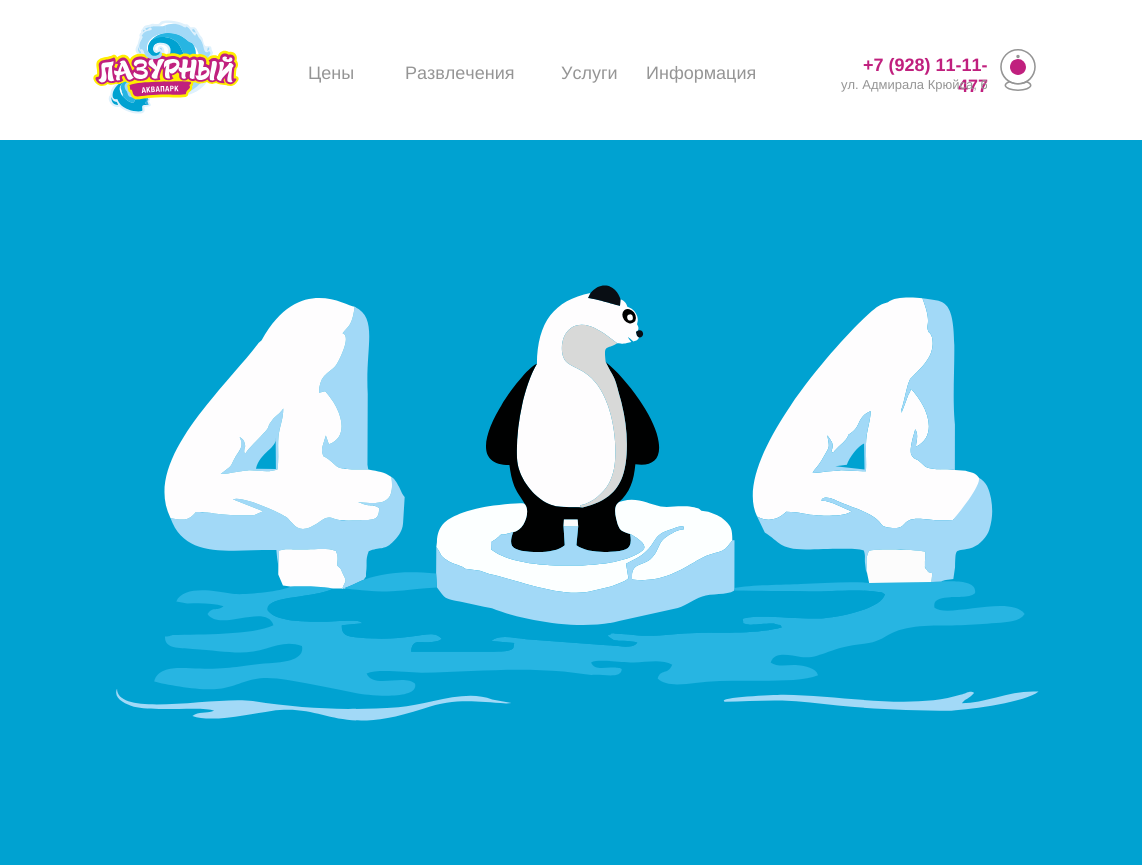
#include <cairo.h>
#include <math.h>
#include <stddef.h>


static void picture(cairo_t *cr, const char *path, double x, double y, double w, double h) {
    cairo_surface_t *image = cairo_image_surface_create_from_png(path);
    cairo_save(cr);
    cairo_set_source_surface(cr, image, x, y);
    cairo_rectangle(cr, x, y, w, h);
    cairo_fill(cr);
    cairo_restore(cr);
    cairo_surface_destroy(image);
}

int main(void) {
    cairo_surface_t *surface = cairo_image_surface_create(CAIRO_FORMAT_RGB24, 1142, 865);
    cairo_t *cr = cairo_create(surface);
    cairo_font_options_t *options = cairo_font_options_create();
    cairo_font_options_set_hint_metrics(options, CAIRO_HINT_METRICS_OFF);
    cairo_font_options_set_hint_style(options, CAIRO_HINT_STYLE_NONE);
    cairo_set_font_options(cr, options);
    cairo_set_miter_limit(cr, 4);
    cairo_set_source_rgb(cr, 0, 0.635, 0.82);
    cairo_paint(cr);
    cairo_set_source_rgb(cr, 1, 1, 1);
    cairo_rectangle(cr, 0, 0, 1142, 140);
    cairo_fill(cr);
    picture(cr, "img1.png", 93, 20, 146, 94);
    cairo_select_font_face(cr, "Liberation Sans", CAIRO_FONT_SLANT_NORMAL, CAIRO_FONT_WEIGHT_NORMAL);
    cairo_set_font_size(cr, 18);
    cairo_set_source_rgb(cr, 0.584, 0.584, 0.584);
    cairo_move_to(cr, 308, 79);
    cairo_show_text(cr, "Цены");
    cairo_move_to(cr, 405, 79);
    cairo_show_text(cr, "Развлечения");
    cairo_move_to(cr, 561, 79);
    cairo_show_text(cr, "Услуги");
    cairo_move_to(cr, 646, 79);
    cairo_show_text(cr, "Информация");
    cairo_select_font_face(cr, "Liberation Sans", CAIRO_FONT_SLANT_NORMAL, CAIRO_FONT_WEIGHT_BOLD);
    cairo_set_source_rgb(cr, 0.753, 0.125, 0.494);
    cairo_move_to(cr, 863, 71);
    cairo_show_text(cr, "+7 (928) 11-11-");
    cairo_move_to(cr, 958, 92);
    cairo_show_text(cr, "477");
    picture(cr, "img2.png", 1000, 49, 36, 42);
    cairo_select_font_face(cr, "Liberation Sans", CAIRO_FONT_SLANT_NORMAL, CAIRO_FONT_WEIGHT_NORMAL);
    cairo_set_font_size(cr, 13);
    cairo_set_source_rgb(cr, 0.584, 0.584, 0.584);
    cairo_move_to(cr, 841, 89);
    cairo_show_text(cr, "ул. Адмирала Крюйса, 6");
    picture(cr, "img3.png", 116, 285, 923, 436);
    cairo_surface_write_to_png(surface, "page.png");
    cairo_font_options_destroy(options);
    cairo_destroy(cr);
    cairo_surface_destroy(surface);
    return 0;
}
